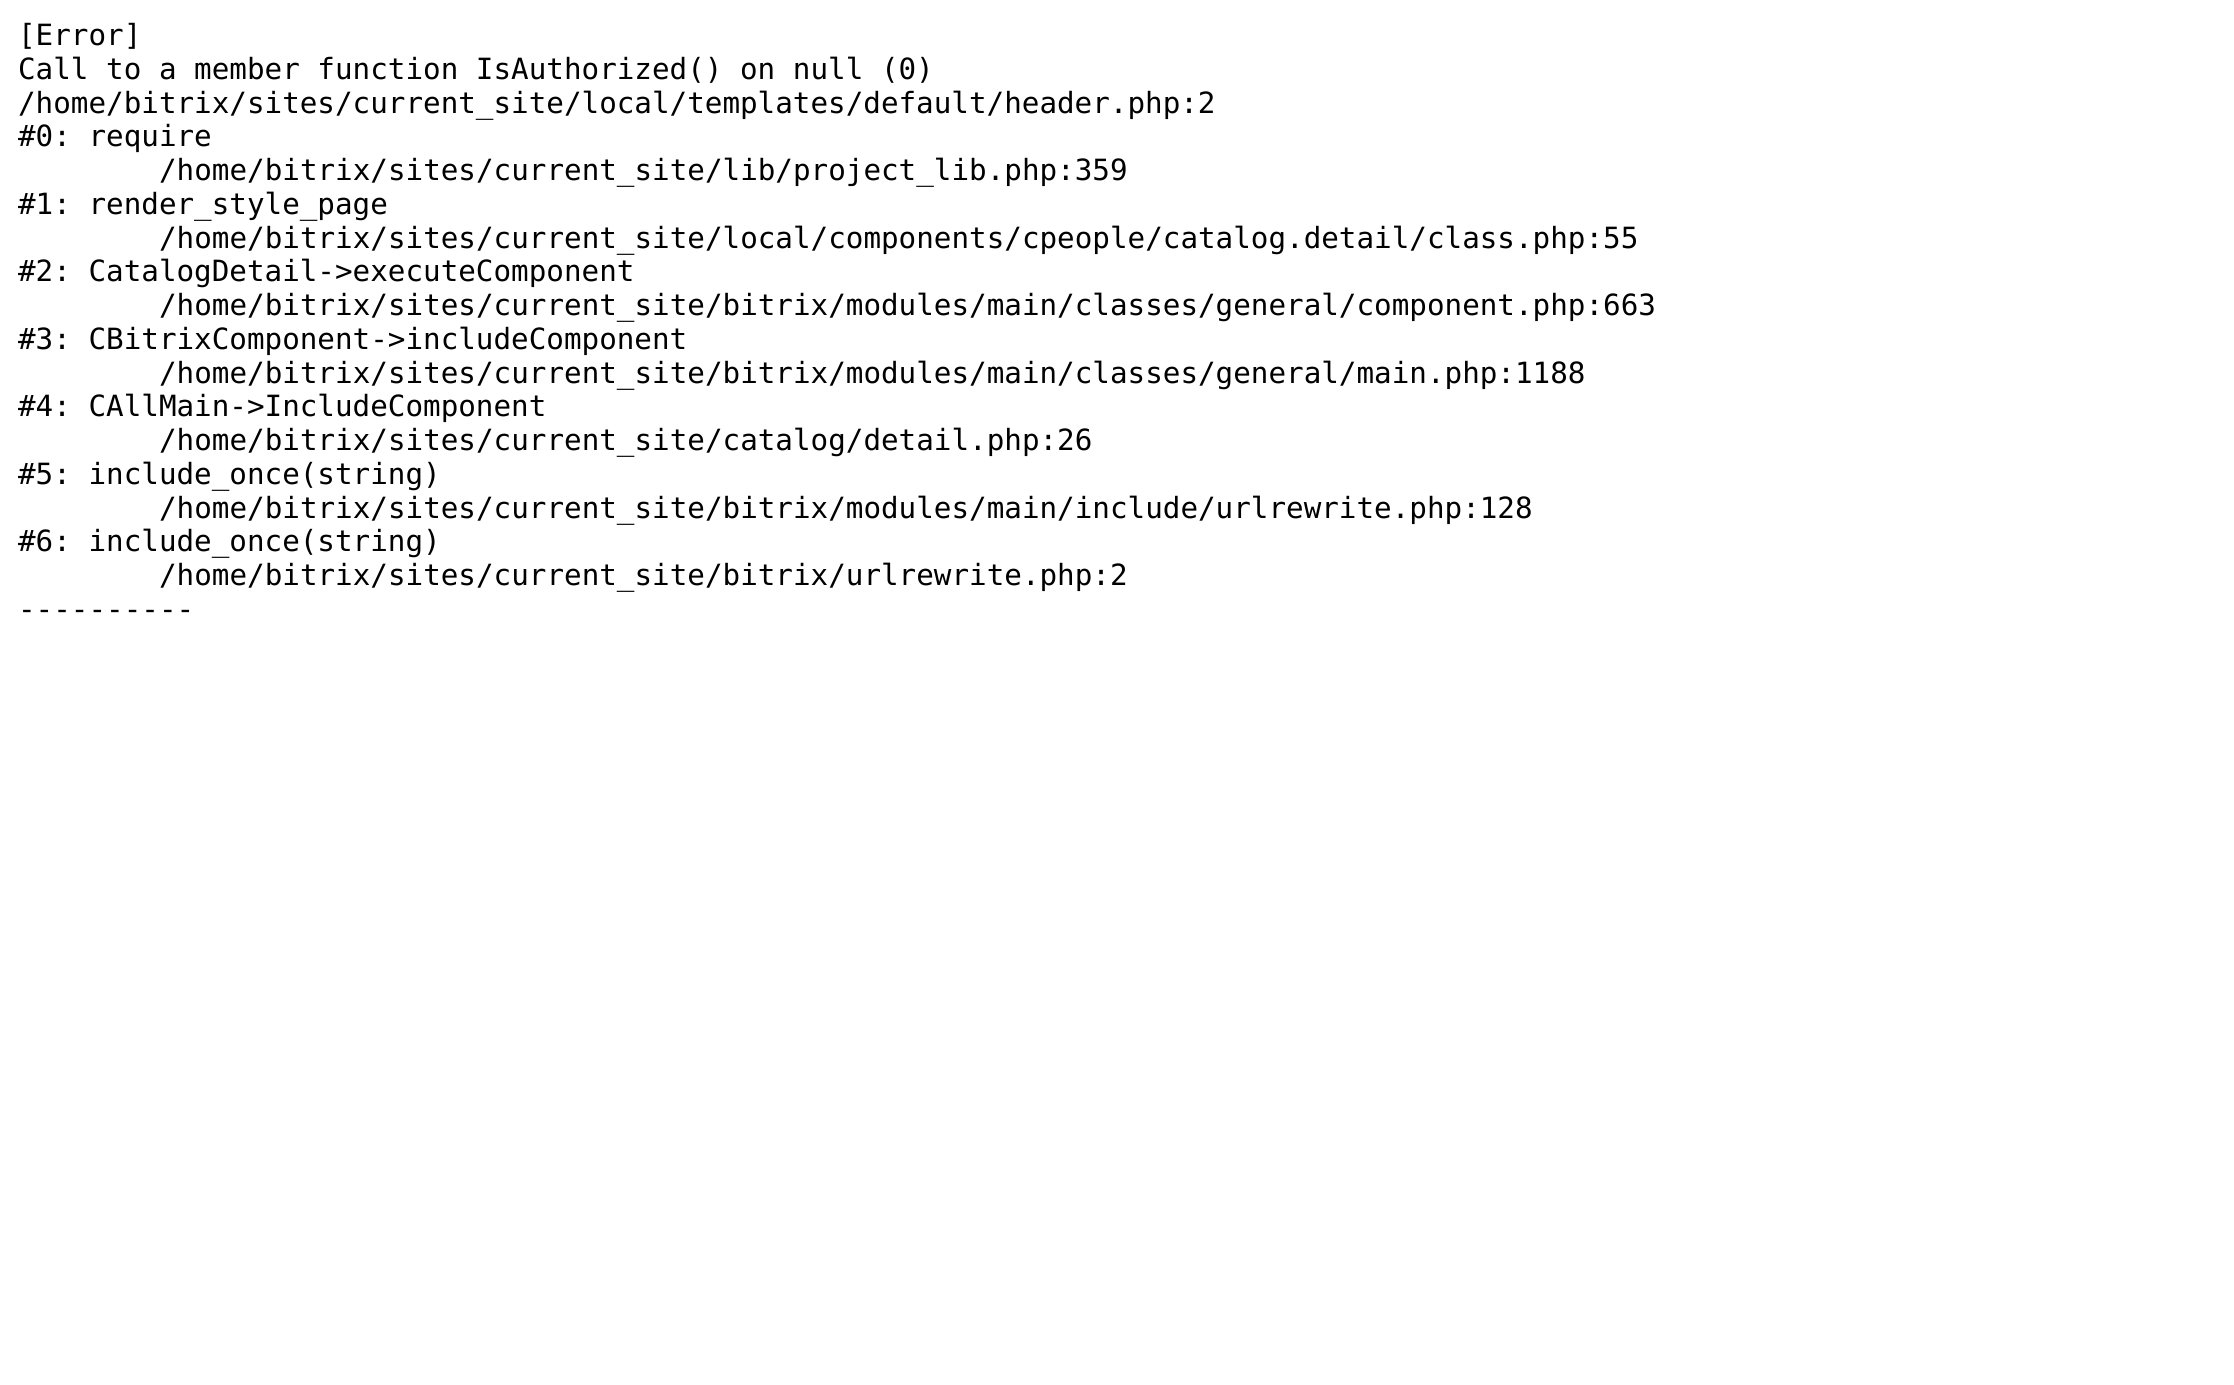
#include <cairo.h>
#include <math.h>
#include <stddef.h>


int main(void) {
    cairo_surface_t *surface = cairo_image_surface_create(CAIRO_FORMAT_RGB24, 2234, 1385);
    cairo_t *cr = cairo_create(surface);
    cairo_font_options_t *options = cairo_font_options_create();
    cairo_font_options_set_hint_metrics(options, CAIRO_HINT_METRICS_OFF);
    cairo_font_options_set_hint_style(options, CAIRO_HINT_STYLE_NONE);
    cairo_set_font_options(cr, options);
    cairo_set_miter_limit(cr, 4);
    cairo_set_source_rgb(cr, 1, 1, 1);
    cairo_paint(cr);
    cairo_select_font_face(cr, "DejaVu Sans Mono", CAIRO_FONT_SLANT_NORMAL, CAIRO_FONT_WEIGHT_NORMAL);
    cairo_set_font_size(cr, 29.25);
    cairo_set_source_rgb(cr, 0, 0, 0);
    cairo_move_to(cr, 18, 45);
    cairo_show_text(cr, "[Error]");
    cairo_move_to(cr, 18, 79);
    cairo_show_text(cr, "Call to a member function IsAuthorized() on null (0)");
    cairo_move_to(cr, 18, 113);
    cairo_show_text(cr, "/home/bitrix/sites/current_site/local/templates/default/header.php:2");
    cairo_move_to(cr, 18, 146);
    cairo_show_text(cr, "#0: require");
    cairo_move_to(cr, 159, 180);
    cairo_show_text(cr, "/home/bitrix/sites/current_site/lib/project_lib.php:359");
    cairo_move_to(cr, 18, 214);
    cairo_show_text(cr, "#1: render_style_page");
    cairo_move_to(cr, 159, 248);
    cairo_show_text(cr, "/home/bitrix/sites/current_site/local/components/cpeople/catalog.detail/class.php:55");
    cairo_move_to(cr, 18, 281);
    cairo_show_text(cr, "#2: CatalogDetail->executeComponent");
    cairo_move_to(cr, 159, 315);
    cairo_show_text(cr, "/home/bitrix/sites/current_site/bitrix/modules/main/classes/general/component.php:663");
    cairo_move_to(cr, 18, 349);
    cairo_show_text(cr, "#3: CBitrixComponent->includeComponent");
    cairo_move_to(cr, 159, 383);
    cairo_show_text(cr, "/home/bitrix/sites/current_site/bitrix/modules/main/classes/general/main.php:1188");
    cairo_move_to(cr, 18, 416);
    cairo_show_text(cr, "#4: CAllMain->IncludeComponent");
    cairo_move_to(cr, 159, 450);
    cairo_show_text(cr, "/home/bitrix/sites/current_site/catalog/detail.php:26");
    cairo_move_to(cr, 18, 484);
    cairo_show_text(cr, "#5: include_once(string)");
    cairo_move_to(cr, 159, 518);
    cairo_show_text(cr, "/home/bitrix/sites/current_site/bitrix/modules/main/include/urlrewrite.php:128");
    cairo_move_to(cr, 18, 551);
    cairo_show_text(cr, "#6: include_once(string)");
    cairo_move_to(cr, 159, 585);
    cairo_show_text(cr, "/home/bitrix/sites/current_site/bitrix/urlrewrite.php:2");
    cairo_move_to(cr, 18, 619);
    cairo_show_text(cr, "----------");
    cairo_surface_write_to_png(surface, "page.png");
    cairo_font_options_destroy(options);
    cairo_destroy(cr);
    cairo_surface_destroy(surface);
    return 0;
}
